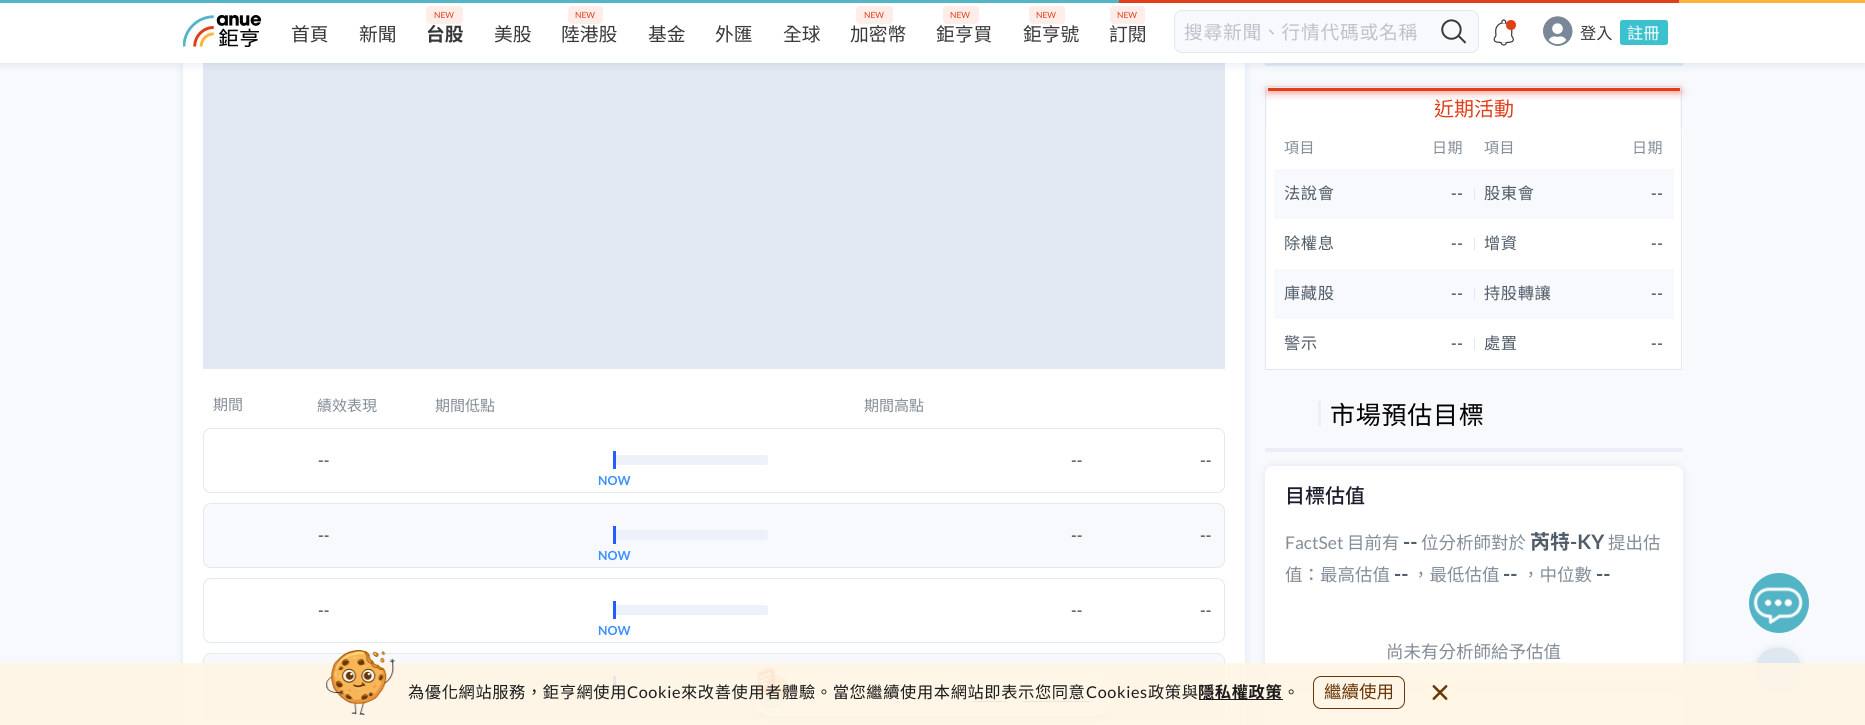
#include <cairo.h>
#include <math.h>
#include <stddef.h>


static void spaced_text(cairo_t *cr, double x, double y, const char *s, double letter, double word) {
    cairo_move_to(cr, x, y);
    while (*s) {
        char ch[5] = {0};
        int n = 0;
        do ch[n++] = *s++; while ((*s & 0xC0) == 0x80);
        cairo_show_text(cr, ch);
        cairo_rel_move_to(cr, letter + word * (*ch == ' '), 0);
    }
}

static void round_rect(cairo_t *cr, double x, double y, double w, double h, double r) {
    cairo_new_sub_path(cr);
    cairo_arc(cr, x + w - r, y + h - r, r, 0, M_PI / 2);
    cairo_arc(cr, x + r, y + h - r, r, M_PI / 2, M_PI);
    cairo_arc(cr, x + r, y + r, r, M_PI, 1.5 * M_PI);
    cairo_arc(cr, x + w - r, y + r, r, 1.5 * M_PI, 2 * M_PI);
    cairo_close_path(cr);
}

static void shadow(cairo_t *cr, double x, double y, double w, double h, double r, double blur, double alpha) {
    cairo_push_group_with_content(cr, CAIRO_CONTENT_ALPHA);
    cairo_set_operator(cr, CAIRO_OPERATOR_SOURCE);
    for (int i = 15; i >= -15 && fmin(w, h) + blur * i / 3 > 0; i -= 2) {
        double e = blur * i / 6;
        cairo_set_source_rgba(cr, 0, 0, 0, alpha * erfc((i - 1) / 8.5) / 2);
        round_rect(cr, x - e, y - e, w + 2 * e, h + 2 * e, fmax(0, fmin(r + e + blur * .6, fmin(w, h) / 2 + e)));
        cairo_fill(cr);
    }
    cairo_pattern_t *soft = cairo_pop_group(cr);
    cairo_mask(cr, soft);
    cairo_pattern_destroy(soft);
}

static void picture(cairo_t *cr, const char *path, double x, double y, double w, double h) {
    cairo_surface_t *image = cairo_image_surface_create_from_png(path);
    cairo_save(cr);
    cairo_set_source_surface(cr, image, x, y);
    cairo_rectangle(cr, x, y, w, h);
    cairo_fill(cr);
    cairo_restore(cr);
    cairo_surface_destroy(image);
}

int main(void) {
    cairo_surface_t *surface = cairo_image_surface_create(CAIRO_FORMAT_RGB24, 1865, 725);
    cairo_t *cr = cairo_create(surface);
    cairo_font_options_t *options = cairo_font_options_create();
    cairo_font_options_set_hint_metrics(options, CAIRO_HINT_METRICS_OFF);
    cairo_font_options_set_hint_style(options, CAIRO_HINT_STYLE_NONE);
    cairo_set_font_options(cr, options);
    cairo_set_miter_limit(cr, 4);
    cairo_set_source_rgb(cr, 0.965, 0.973, 0.988);
    cairo_paint(cr);
    cairo_set_source_rgb(cr, 0, 0.255, 0.561);
    shadow(cr, 183, -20, 1062, 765, 8, 4, 0.1);
    cairo_set_source_rgb(cr, 1, 1, 1);
    cairo_rectangle(cr, 183, 63, 1062, 662);
    cairo_fill(cr);
    cairo_set_source_rgb(cr, 0.886, 0.91, 0.945);
    cairo_rectangle(cr, 203, 63, 1022, 306);
    cairo_fill(cr);
    cairo_rectangle(cr, 1265, 63, 418, 3);
    cairo_fill(cr);
    cairo_set_source_rgb(cr, 0, 0.255, 0.561);
    shadow(cr, 0, 3, 1865, 62, 0, 4, 0.1);
    cairo_set_source_rgb(cr, 1, 1, 1);
    cairo_rectangle(cr, 0, 3, 1865, 60);
    cairo_fill(cr);
    cairo_set_source_rgb(cr, 0.329, 0.71, 0.776);
    cairo_rectangle(cr, 0, 0, 1119, 3);
    cairo_fill(cr);
    cairo_set_source_rgb(cr, 0.878, 0.247, 0.098);
    cairo_rectangle(cr, 1119, 0, 560, 3);
    cairo_fill(cr);
    cairo_set_source_rgb(cr, 1, 0.706, 0.243);
    cairo_rectangle(cr, 1679, 0, 186, 3);
    cairo_fill(cr);
    picture(cr, "img1.png", 183, 15, 78, 32);
    cairo_select_font_face(cr, "Noto Sans TC", CAIRO_FONT_SLANT_NORMAL, CAIRO_FONT_WEIGHT_NORMAL);
    cairo_set_font_size(cr, 18.75);
    cairo_set_source_rgb(cr, 0.22, 0.22, 0.22);
    cairo_move_to(cr, 291, 41);
    cairo_show_text(cr, "首頁");
    cairo_move_to(cr, 359, 41);
    cairo_show_text(cr, "新聞");
    cairo_set_source_rgb(cr, 0.996, 0.929, 0.914);
    round_rect(cr, 426, 6, 37, 18, 4);
    cairo_fill(cr);
    cairo_select_font_face(cr, "Lato", CAIRO_FONT_SLANT_NORMAL, CAIRO_FONT_WEIGHT_NORMAL);
    cairo_set_font_size(cr, 8.5);
    cairo_set_source_rgb(cr, 0.878, 0.247, 0.098);
    cairo_move_to(cr, 434, 18);
    cairo_show_text(cr, "NEW");
    cairo_select_font_face(cr, "Noto Sans TC", CAIRO_FONT_SLANT_NORMAL, CAIRO_FONT_WEIGHT_BOLD);
    cairo_set_font_size(cr, 18.75);
    cairo_set_source_rgb(cr, 0.22, 0.22, 0.22);
    cairo_move_to(cr, 426, 41);
    cairo_show_text(cr, "台股");
    cairo_select_font_face(cr, "Noto Sans TC", CAIRO_FONT_SLANT_NORMAL, CAIRO_FONT_WEIGHT_NORMAL);
    cairo_move_to(cr, 494, 41);
    cairo_show_text(cr, "美股");
    cairo_set_source_rgb(cr, 0.996, 0.929, 0.914);
    round_rect(cr, 568, 6, 35, 18, 4);
    cairo_fill(cr);
    cairo_select_font_face(cr, "Lato", CAIRO_FONT_SLANT_NORMAL, CAIRO_FONT_WEIGHT_NORMAL);
    cairo_set_font_size(cr, 8.5);
    cairo_set_source_rgb(cr, 0.878, 0.247, 0.098);
    cairo_move_to(cr, 575, 18);
    cairo_show_text(cr, "NEW");
    cairo_select_font_face(cr, "Noto Sans TC", CAIRO_FONT_SLANT_NORMAL, CAIRO_FONT_WEIGHT_NORMAL);
    cairo_set_font_size(cr, 18.75);
    cairo_set_source_rgb(cr, 0.22, 0.22, 0.22);
    cairo_move_to(cr, 561, 41);
    cairo_show_text(cr, "陸港股");
    cairo_move_to(cr, 648, 41);
    cairo_show_text(cr, "基金");
    cairo_move_to(cr, 715, 41);
    cairo_show_text(cr, "外匯");
    cairo_move_to(cr, 783, 41);
    cairo_show_text(cr, "全球");
    cairo_set_source_rgb(cr, 0.996, 0.929, 0.914);
    round_rect(cr, 856, 6, 37, 18, 4);
    cairo_fill(cr);
    cairo_select_font_face(cr, "Lato", CAIRO_FONT_SLANT_NORMAL, CAIRO_FONT_WEIGHT_NORMAL);
    cairo_set_font_size(cr, 8.5);
    cairo_set_source_rgb(cr, 0.878, 0.247, 0.098);
    cairo_move_to(cr, 864, 18);
    cairo_show_text(cr, "NEW");
    cairo_select_font_face(cr, "Noto Sans TC", CAIRO_FONT_SLANT_NORMAL, CAIRO_FONT_WEIGHT_NORMAL);
    cairo_set_font_size(cr, 18.75);
    cairo_set_source_rgb(cr, 0.22, 0.22, 0.22);
    cairo_move_to(cr, 850, 41);
    cairo_show_text(cr, "加密幣");
    cairo_set_source_rgb(cr, 0.996, 0.929, 0.914);
    round_rect(cr, 943, 6, 36, 18, 4);
    cairo_fill(cr);
    cairo_select_font_face(cr, "Lato", CAIRO_FONT_SLANT_NORMAL, CAIRO_FONT_WEIGHT_NORMAL);
    cairo_set_font_size(cr, 8.5);
    cairo_set_source_rgb(cr, 0.878, 0.247, 0.098);
    cairo_move_to(cr, 950, 18);
    cairo_show_text(cr, "NEW");
    cairo_select_font_face(cr, "Noto Sans TC", CAIRO_FONT_SLANT_NORMAL, CAIRO_FONT_WEIGHT_NORMAL);
    cairo_set_font_size(cr, 18.75);
    cairo_set_source_rgb(cr, 0.22, 0.22, 0.22);
    cairo_move_to(cr, 936, 41);
    cairo_show_text(cr, "鉅亨買");
    cairo_set_source_rgb(cr, 0.996, 0.929, 0.914);
    round_rect(cr, 1029, 6, 36, 18, 4);
    cairo_fill(cr);
    cairo_select_font_face(cr, "Lato", CAIRO_FONT_SLANT_NORMAL, CAIRO_FONT_WEIGHT_NORMAL);
    cairo_set_font_size(cr, 8.5);
    cairo_set_source_rgb(cr, 0.878, 0.247, 0.098);
    cairo_move_to(cr, 1036, 18);
    cairo_show_text(cr, "NEW");
    cairo_select_font_face(cr, "Noto Sans TC", CAIRO_FONT_SLANT_NORMAL, CAIRO_FONT_WEIGHT_NORMAL);
    cairo_set_font_size(cr, 18.75);
    cairo_set_source_rgb(cr, 0.22, 0.22, 0.22);
    cairo_move_to(cr, 1023, 41);
    cairo_show_text(cr, "鉅亨號");
    cairo_set_source_rgb(cr, 0.996, 0.929, 0.914);
    round_rect(cr, 1110, 6, 35, 18, 4);
    cairo_fill(cr);
    cairo_select_font_face(cr, "Lato", CAIRO_FONT_SLANT_NORMAL, CAIRO_FONT_WEIGHT_NORMAL);
    cairo_set_font_size(cr, 8.5);
    cairo_set_source_rgb(cr, 0.878, 0.247, 0.098);
    cairo_move_to(cr, 1117, 18);
    cairo_show_text(cr, "NEW");
    cairo_select_font_face(cr, "Noto Sans TC", CAIRO_FONT_SLANT_NORMAL, CAIRO_FONT_WEIGHT_NORMAL);
    cairo_set_font_size(cr, 18.75);
    cairo_set_source_rgb(cr, 0.22, 0.22, 0.22);
    cairo_move_to(cr, 1109, 41);
    cairo_show_text(cr, "訂閱");
    cairo_set_source_rgb(cr, 0.965, 0.973, 0.988);
    round_rect(cr, 1174.5, 10.5, 304, 42, 7.5);
    cairo_fill_preserve(cr);
    cairo_set_source_rgb(cr, 0.886, 0.91, 0.945);
    cairo_set_line_width(cr, 1);
    cairo_stroke(cr);
    cairo_set_source_rgb(cr, 0.741, 0.765, 0.792);
    spaced_text(cr, 1184, 39, "搜尋新聞、行情代碼或名稱", 0.75, 0);
    picture(cr, "img2.png", 1441, 19, 26, 25);
    picture(cr, "img3.png", 1493, 19, 21, 27);
    cairo_set_source_rgb(cr, 0.878, 0.247, 0.098);
    cairo_arc(cr, 1511, 25, 5, 0, 2 * M_PI);
    cairo_fill(cr);
    picture(cr, "img4.png", 1543, 16, 30, 30);
    cairo_set_font_size(cr, 16.25);
    cairo_set_source_rgb(cr, 0.22, 0.22, 0.22);
    cairo_move_to(cr, 1580, 39);
    cairo_show_text(cr, "登入");
    cairo_set_source_rgb(cr, 0.243, 0.757, 0.808);
    round_rect(cr, 1620, 20, 48, 25, 2.5);
    cairo_fill(cr);
    cairo_set_source_rgb(cr, 1, 1, 1);
    cairo_move_to(cr, 1627, 39);
    cairo_show_text(cr, "註冊");
    cairo_set_font_size(cr, 15);
    cairo_set_source_rgb(cr, 0.518, 0.553, 0.592);
    cairo_move_to(cr, 213, 410);
    cairo_show_text(cr, "期間");
    cairo_move_to(cr, 317, 411);
    cairo_show_text(cr, "績效表現");
    cairo_move_to(cr, 435, 411);
    cairo_show_text(cr, "期間低點");
    cairo_move_to(cr, 864, 411);
    cairo_show_text(cr, "期間高點");
    round_rect(cr, 203.5, 428.5, 1021, 64, 7.5);
    cairo_set_source_rgb(cr, 0.886, 0.91, 0.945);
    cairo_stroke(cr);
    cairo_select_font_face(cr, "Lato", CAIRO_FONT_SLANT_NORMAL, CAIRO_FONT_WEIGHT_NORMAL);
    cairo_set_font_size(cr, 16.25);
    cairo_set_source_rgb(cr, 0.22, 0.22, 0.22);
    cairo_move_to(cr, 318, 466);
    cairo_show_text(cr, "--");
    cairo_move_to(cr, 1071, 466);
    cairo_show_text(cr, "--");
    cairo_move_to(cr, 1200, 466);
    cairo_show_text(cr, "--");
    cairo_set_source_rgb(cr, 0.929, 0.945, 0.973);
    round_rect(cr, 614, 455, 154, 10, 2.5);
    cairo_fill(cr);
    cairo_set_source_rgb(cr, 0.153, 0.357, 1);
    cairo_rectangle(cr, 613, 451, 3, 18);
    cairo_fill(cr);
    cairo_select_font_face(cr, "Lato", CAIRO_FONT_SLANT_NORMAL, CAIRO_FONT_WEIGHT_BOLD);
    cairo_set_font_size(cr, 12.5);
    cairo_set_source_rgb(cr, 0.239, 0.569, 1);
    cairo_move_to(cr, 598, 485);
    cairo_show_text(cr, "NOW");
    cairo_set_source_rgb(cr, 0.965, 0.973, 0.988);
    round_rect(cr, 203.5, 503.5, 1021, 64, 7.5);
    cairo_fill_preserve(cr);
    cairo_set_source_rgb(cr, 0.886, 0.91, 0.945);
    cairo_stroke(cr);
    cairo_select_font_face(cr, "Lato", CAIRO_FONT_SLANT_NORMAL, CAIRO_FONT_WEIGHT_NORMAL);
    cairo_set_font_size(cr, 16.25);
    cairo_set_source_rgb(cr, 0.22, 0.22, 0.22);
    cairo_move_to(cr, 318, 541);
    cairo_show_text(cr, "--");
    cairo_move_to(cr, 1071, 541);
    cairo_show_text(cr, "--");
    cairo_move_to(cr, 1200, 541);
    cairo_show_text(cr, "--");
    cairo_set_source_rgb(cr, 0.929, 0.945, 0.973);
    round_rect(cr, 614, 530, 154, 10, 2.5);
    cairo_fill(cr);
    cairo_set_source_rgb(cr, 0.153, 0.357, 1);
    cairo_rectangle(cr, 613, 526, 3, 18);
    cairo_fill(cr);
    cairo_select_font_face(cr, "Lato", CAIRO_FONT_SLANT_NORMAL, CAIRO_FONT_WEIGHT_BOLD);
    cairo_set_font_size(cr, 12.5);
    cairo_set_source_rgb(cr, 0.239, 0.569, 1);
    cairo_move_to(cr, 598, 560);
    cairo_show_text(cr, "NOW");
    round_rect(cr, 203.5, 578.5, 1021, 64, 7.5);
    cairo_set_source_rgb(cr, 0.886, 0.91, 0.945);
    cairo_stroke(cr);
    cairo_select_font_face(cr, "Lato", CAIRO_FONT_SLANT_NORMAL, CAIRO_FONT_WEIGHT_NORMAL);
    cairo_set_font_size(cr, 16.25);
    cairo_set_source_rgb(cr, 0.22, 0.22, 0.22);
    cairo_move_to(cr, 318, 616);
    cairo_show_text(cr, "--");
    cairo_move_to(cr, 1071, 616);
    cairo_show_text(cr, "--");
    cairo_move_to(cr, 1200, 616);
    cairo_show_text(cr, "--");
    cairo_set_source_rgb(cr, 0.929, 0.945, 0.973);
    round_rect(cr, 614, 605, 154, 10, 2.5);
    cairo_fill(cr);
    cairo_set_source_rgb(cr, 0.153, 0.357, 1);
    cairo_rectangle(cr, 613, 601, 3, 18);
    cairo_fill(cr);
    cairo_select_font_face(cr, "Lato", CAIRO_FONT_SLANT_NORMAL, CAIRO_FONT_WEIGHT_BOLD);
    cairo_set_font_size(cr, 12.5);
    cairo_set_source_rgb(cr, 0.239, 0.569, 1);
    cairo_move_to(cr, 598, 635);
    cairo_show_text(cr, "NOW");
    cairo_set_source_rgb(cr, 0.965, 0.973, 0.988);
    round_rect(cr, 203.5, 653.5, 1021, 64, 7.5);
    cairo_fill_preserve(cr);
    cairo_set_source_rgb(cr, 0.886, 0.91, 0.945);
    cairo_stroke(cr);
    cairo_set_source_rgb(cr, 0.929, 0.945, 0.973);
    cairo_rectangle(cr, 616, 680, 139, 10);
    cairo_fill(cr);
    cairo_set_source_rgb(cr, 0.153, 0.357, 1);
    cairo_rectangle(cr, 613, 676, 3, 18);
    cairo_fill(cr);
    cairo_set_source_rgb(cr, 0.886, 0.91, 0.945);
    cairo_rectangle(cr, 1681, 86, 1, 43);
    cairo_fill(cr);
    cairo_rectangle(cr, 1265, 86, 1, 43);
    cairo_fill(cr);
    cairo_set_source_rgb(cr, 1, 1, 1);
    cairo_rectangle(cr, 1267, 87, 413, 42);
    cairo_fill(cr);
    cairo_set_source_rgb(cr, 0.886, 0.91, 0.945);
    cairo_rectangle(cr, 1266, 86, 415, 1);
    cairo_fill(cr);
    cairo_set_source_rgb(cr, 0.965, 0.973, 0.988);
    cairo_rectangle(cr, 1680, 86, 1, 1);
    cairo_fill(cr);
    cairo_rectangle(cr, 1266, 86, 1, 1);
    cairo_fill(cr);
    cairo_set_source_rgb(cr, 0.871, 0.204, 0.176);
    shadow(cr, 1268, 90, 412, 3, 0, 4, 0.5);
    cairo_set_source_rgb(cr, 0.878, 0.247, 0.098);
    cairo_rectangle(cr, 1268, 88, 412, 3);
    cairo_fill(cr);
    cairo_select_font_face(cr, "Noto Sans TC", CAIRO_FONT_SLANT_NORMAL, CAIRO_FONT_WEIGHT_NORMAL);
    cairo_set_font_size(cr, 20);
    cairo_move_to(cr, 1434, 116);
    cairo_show_text(cr, "近期活動");
    cairo_set_source_rgb(cr, 1, 1, 1);
    cairo_rectangle(cr, 1266, 129, 417, 240);
    cairo_fill(cr);
    cairo_set_source_rgb(cr, 0.886, 0.91, 0.945);
    cairo_rectangle(cr, 1681, 129, 1, 241);
    cairo_fill(cr);
    cairo_rectangle(cr, 1265, 369, 418, 1);
    cairo_fill(cr);
    cairo_rectangle(cr, 1265, 129, 1, 241);
    cairo_fill(cr);
    cairo_set_font_size(cr, 15);
    cairo_set_source_rgb(cr, 0.518, 0.553, 0.592);
    spaced_text(cr, 1284, 153, "項目", 0.6, 0);
    spaced_text(cr, 1432, 153, "日期", 0.6, 0);
    cairo_set_source_rgb(cr, 0.965, 0.973, 0.988);
    cairo_rectangle(cr, 1274, 169, 400, 50);
    cairo_fill(cr);
    cairo_set_font_size(cr, 16.25);
    cairo_set_source_rgb(cr, 0.318, 0.361, 0.412);
    spaced_text(cr, 1284, 199, "法說會", 0.6, 0);
    cairo_select_font_face(cr, "Lato", CAIRO_FONT_SLANT_NORMAL, CAIRO_FONT_WEIGHT_NORMAL);
    cairo_set_source_rgb(cr, 0.22, 0.22, 0.22);
    spaced_text(cr, 1451, 199, "--", 0.6, 0);
    cairo_select_font_face(cr, "Noto Sans TC", CAIRO_FONT_SLANT_NORMAL, CAIRO_FONT_WEIGHT_NORMAL);
    cairo_set_source_rgb(cr, 0.318, 0.361, 0.412);
    spaced_text(cr, 1284, 249, "除權息", 0.6, 0);
    cairo_select_font_face(cr, "Lato", CAIRO_FONT_SLANT_NORMAL, CAIRO_FONT_WEIGHT_NORMAL);
    cairo_set_source_rgb(cr, 0.22, 0.22, 0.22);
    spaced_text(cr, 1451, 249, "--", 0.6, 0);
    cairo_set_source_rgb(cr, 0.965, 0.973, 0.988);
    cairo_rectangle(cr, 1274, 269, 400, 50);
    cairo_fill(cr);
    cairo_select_font_face(cr, "Noto Sans TC", CAIRO_FONT_SLANT_NORMAL, CAIRO_FONT_WEIGHT_NORMAL);
    cairo_set_source_rgb(cr, 0.318, 0.361, 0.412);
    spaced_text(cr, 1284, 299, "庫藏股", 0.6, 0);
    cairo_select_font_face(cr, "Lato", CAIRO_FONT_SLANT_NORMAL, CAIRO_FONT_WEIGHT_NORMAL);
    cairo_set_source_rgb(cr, 0.22, 0.22, 0.22);
    spaced_text(cr, 1451, 299, "--", 0.6, 0);
    cairo_select_font_face(cr, "Noto Sans TC", CAIRO_FONT_SLANT_NORMAL, CAIRO_FONT_WEIGHT_NORMAL);
    cairo_set_source_rgb(cr, 0.318, 0.361, 0.412);
    spaced_text(cr, 1284, 349, "警示", 0.6, 0);
    cairo_select_font_face(cr, "Lato", CAIRO_FONT_SLANT_NORMAL, CAIRO_FONT_WEIGHT_NORMAL);
    cairo_set_source_rgb(cr, 0.22, 0.22, 0.22);
    spaced_text(cr, 1451, 349, "--", 0.6, 0);
    cairo_select_font_face(cr, "Noto Sans TC", CAIRO_FONT_SLANT_NORMAL, CAIRO_FONT_WEIGHT_NORMAL);
    cairo_set_font_size(cr, 15);
    cairo_set_source_rgb(cr, 0.518, 0.553, 0.592);
    spaced_text(cr, 1484, 153, "項目", 0.6, 0);
    spaced_text(cr, 1632, 153, "日期", 0.6, 0);
    cairo_set_source_rgb(cr, 0.886, 0.91, 0.945);
    cairo_rectangle(cr, 1474, 188, 1, 12);
    cairo_fill(cr);
    cairo_set_font_size(cr, 16.25);
    cairo_set_source_rgb(cr, 0.318, 0.361, 0.412);
    spaced_text(cr, 1484, 199, "股東會", 0.6, 0);
    cairo_select_font_face(cr, "Lato", CAIRO_FONT_SLANT_NORMAL, CAIRO_FONT_WEIGHT_NORMAL);
    cairo_set_source_rgb(cr, 0.22, 0.22, 0.22);
    spaced_text(cr, 1651, 199, "--", 0.6, 0);
    cairo_set_source_rgb(cr, 0.886, 0.91, 0.945);
    cairo_rectangle(cr, 1474, 238, 1, 12);
    cairo_fill(cr);
    cairo_select_font_face(cr, "Noto Sans TC", CAIRO_FONT_SLANT_NORMAL, CAIRO_FONT_WEIGHT_NORMAL);
    cairo_set_source_rgb(cr, 0.318, 0.361, 0.412);
    spaced_text(cr, 1484, 249, "增資", 0.6, 0);
    cairo_select_font_face(cr, "Lato", CAIRO_FONT_SLANT_NORMAL, CAIRO_FONT_WEIGHT_NORMAL);
    cairo_set_source_rgb(cr, 0.22, 0.22, 0.22);
    spaced_text(cr, 1651, 249, "--", 0.6, 0);
    cairo_set_source_rgb(cr, 0.886, 0.91, 0.945);
    cairo_rectangle(cr, 1474, 288, 1, 12);
    cairo_fill(cr);
    cairo_select_font_face(cr, "Noto Sans TC", CAIRO_FONT_SLANT_NORMAL, CAIRO_FONT_WEIGHT_NORMAL);
    cairo_set_source_rgb(cr, 0.318, 0.361, 0.412);
    spaced_text(cr, 1484, 299, "持股轉讓", 0.6, 0);
    cairo_select_font_face(cr, "Lato", CAIRO_FONT_SLANT_NORMAL, CAIRO_FONT_WEIGHT_NORMAL);
    cairo_set_source_rgb(cr, 0.22, 0.22, 0.22);
    spaced_text(cr, 1651, 299, "--", 0.6, 0);
    cairo_set_source_rgb(cr, 0.886, 0.91, 0.945);
    cairo_rectangle(cr, 1474, 338, 1, 12);
    cairo_fill(cr);
    cairo_select_font_face(cr, "Noto Sans TC", CAIRO_FONT_SLANT_NORMAL, CAIRO_FONT_WEIGHT_NORMAL);
    cairo_set_source_rgb(cr, 0.318, 0.361, 0.412);
    spaced_text(cr, 1484, 349, "處置", 0.6, 0);
    cairo_select_font_face(cr, "Lato", CAIRO_FONT_SLANT_NORMAL, CAIRO_FONT_WEIGHT_NORMAL);
    cairo_set_source_rgb(cr, 0.22, 0.22, 0.22);
    spaced_text(cr, 1651, 349, "--", 0.6, 0);
    cairo_set_source_rgb(cr, 0.918, 0.933, 0.961);
    cairo_rectangle(cr, 1265, 448, 418, 4);
    cairo_fill(cr);
    cairo_rectangle(cr, 1318, 401, 3, 25);
    cairo_fill(cr);
    cairo_select_font_face(cr, "Noto Sans TC", CAIRO_FONT_SLANT_NORMAL, CAIRO_FONT_WEIGHT_NORMAL);
    cairo_set_font_size(cr, 25);
    cairo_set_source_rgb(cr, 0, 0, 0);
    spaced_text(cr, 1330, 424, "市場預估目標", 0.75, 0);
    cairo_set_source_rgb(cr, 0, 0.255, 0.561);
    shadow(cr, 1265, 466, 418, 215, 8, 4, 0.1);
    cairo_set_source_rgb(cr, 1, 1, 1);
    round_rect(cr, 1265, 466, 418, 215, 8);
    cairo_fill(cr);
    cairo_select_font_face(cr, "Noto Sans TC Medium", CAIRO_FONT_SLANT_NORMAL, CAIRO_FONT_WEIGHT_NORMAL);
    cairo_set_font_size(cr, 20);
    cairo_set_source_rgb(cr, 0.11, 0.118, 0.184);
    cairo_move_to(cr, 1285, 503);
    cairo_show_text(cr, "目標估值");
    cairo_select_font_face(cr, "Lato", CAIRO_FONT_SLANT_NORMAL, CAIRO_FONT_WEIGHT_NORMAL);
    cairo_set_font_size(cr, 17.5);
    cairo_set_source_rgb(cr, 0.518, 0.553, 0.592);
    cairo_move_to(cr, 1285, 549);
    cairo_show_text(cr, "FactSet");
    cairo_select_font_face(cr, "Noto Sans TC", CAIRO_FONT_SLANT_NORMAL, CAIRO_FONT_WEIGHT_NORMAL);
    cairo_move_to(cr, 1347, 549);
    cairo_show_text(cr, "目前有");
    cairo_select_font_face(cr, "Lato", CAIRO_FONT_SLANT_NORMAL, CAIRO_FONT_WEIGHT_BOLD);
    cairo_set_font_size(cr, 20);
    cairo_set_source_rgb(cr, 0.318, 0.361, 0.412);
    cairo_move_to(cr, 1403, 549);
    cairo_show_text(cr, "--");
    cairo_select_font_face(cr, "Noto Sans TC", CAIRO_FONT_SLANT_NORMAL, CAIRO_FONT_WEIGHT_NORMAL);
    cairo_set_font_size(cr, 17.5);
    cairo_set_source_rgb(cr, 0.518, 0.553, 0.592);
    cairo_move_to(cr, 1421, 549);
    cairo_show_text(cr, "位分析師對於");
    cairo_select_font_face(cr, "Noto Sans TC", CAIRO_FONT_SLANT_NORMAL, CAIRO_FONT_WEIGHT_BOLD);
    cairo_set_font_size(cr, 20);
    cairo_set_source_rgb(cr, 0.318, 0.361, 0.412);
    cairo_move_to(cr, 1530, 549);
    cairo_show_text(cr, "芮特");
    cairo_select_font_face(cr, "Lato", CAIRO_FONT_SLANT_NORMAL, CAIRO_FONT_WEIGHT_BOLD);
    cairo_move_to(cr, 1570, 549);
    cairo_show_text(cr, "-KY");
    cairo_select_font_face(cr, "Noto Sans TC", CAIRO_FONT_SLANT_NORMAL, CAIRO_FONT_WEIGHT_NORMAL);
    cairo_set_font_size(cr, 17.5);
    cairo_set_source_rgb(cr, 0.518, 0.553, 0.592);
    cairo_move_to(cr, 1608, 549);
    cairo_show_text(cr, "提出估");
    cairo_move_to(cr, 1285, 581);
    cairo_show_text(cr, "值：最高估值");
    cairo_select_font_face(cr, "Lato", CAIRO_FONT_SLANT_NORMAL, CAIRO_FONT_WEIGHT_BOLD);
    cairo_set_font_size(cr, 20);
    cairo_set_source_rgb(cr, 0.318, 0.361, 0.412);
    cairo_move_to(cr, 1394, 581);
    cairo_show_text(cr, "--");
    cairo_select_font_face(cr, "Noto Sans TC", CAIRO_FONT_SLANT_NORMAL, CAIRO_FONT_WEIGHT_NORMAL);
    cairo_set_font_size(cr, 17.5);
    cairo_set_source_rgb(cr, 0.518, 0.553, 0.592);
    cairo_move_to(cr, 1412, 581);
    cairo_show_text(cr, "，最低估值");
    cairo_select_font_face(cr, "Lato", CAIRO_FONT_SLANT_NORMAL, CAIRO_FONT_WEIGHT_BOLD);
    cairo_set_font_size(cr, 20);
    cairo_set_source_rgb(cr, 0.318, 0.361, 0.412);
    cairo_move_to(cr, 1503, 581);
    cairo_show_text(cr, "--");
    cairo_select_font_face(cr, "Noto Sans TC", CAIRO_FONT_SLANT_NORMAL, CAIRO_FONT_WEIGHT_NORMAL);
    cairo_set_font_size(cr, 17.5);
    cairo_set_source_rgb(cr, 0.518, 0.553, 0.592);
    cairo_move_to(cr, 1522, 581);
    cairo_show_text(cr, "，中位數");
    cairo_select_font_face(cr, "Lato", CAIRO_FONT_SLANT_NORMAL, CAIRO_FONT_WEIGHT_BOLD);
    cairo_set_font_size(cr, 20);
    cairo_set_source_rgb(cr, 0.318, 0.361, 0.412);
    cairo_move_to(cr, 1596, 581);
    cairo_show_text(cr, "--");
    cairo_select_font_face(cr, "Noto Sans TC", CAIRO_FONT_SLANT_NORMAL, CAIRO_FONT_WEIGHT_NORMAL);
    cairo_set_font_size(cr, 17.5);
    cairo_set_source_rgb(cr, 0.518, 0.553, 0.592);
    cairo_move_to(cr, 1386, 658);
    cairo_show_text(cr, "尚未有分析師給予估值");
    cairo_set_source_rgb(cr, 0, 0.255, 0.561);
    shadow(cr, 1265, 694, 418, 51, 8, 4, 0.1);
    cairo_set_source_rgb(cr, 1, 1, 1);
    round_rect(cr, 1265, 694, 418, 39, 8);
    cairo_fill(cr);
    cairo_set_source_rgb(cr, 0.325, 0.706, 0.776);
    cairo_arc(cr, 1779, 603, 30, 0, 2 * M_PI);
    cairo_fill(cr);
    picture(cr, "img5.png", 1753, 587, 50, 38);
    cairo_save(cr);
    cairo_set_fill_rule(cr, CAIRO_FILL_RULE_EVEN_ODD);
    cairo_new_path(cr);
    cairo_move_to(cr, 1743, 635);
    cairo_line_to(cr, 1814, 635);
    cairo_line_to(cr, 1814, 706);
    cairo_line_to(cr, 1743, 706);
    cairo_close_path(cr);
    cairo_move_to(cr, 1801, 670);
    cairo_curve_to(cr, 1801, 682.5, 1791, 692.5, 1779, 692.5);
    cairo_curve_to(cr, 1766.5, 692.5, 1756, 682.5, 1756, 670);
    cairo_curve_to(cr, 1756, 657.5, 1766.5, 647.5, 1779, 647.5);
    cairo_curve_to(cr, 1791, 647.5, 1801, 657.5, 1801, 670);
    cairo_close_path(cr);
    cairo_clip(cr);
    cairo_set_source_rgb(cr, 0, 0.255, 0.561);
    shadow(cr, 1756, 648, 45, 45, 22.5, 4, 0.1);
    cairo_restore(cr);
    cairo_set_source_rgba(cr, 0, 0.255, 0.561, 0.1);
    cairo_new_path(cr);
    cairo_move_to(cr, 1801, 670);
    cairo_curve_to(cr, 1801, 700, 1756, 700, 1756, 670);
    cairo_curve_to(cr, 1756, 640, 1801, 640, 1801, 670);
    cairo_close_path(cr);
    cairo_fill(cr);
    cairo_set_source_rgb(cr, 0.11, 0.118, 0.184);
    shadow(cr, 750, 675, 365, 45, 22.5, 4, 0.11);
    cairo_set_source_rgb(cr, 1, 1, 1);
    round_rect(cr, 750, 671, 365, 45, 22.5);
    cairo_fill(cr);
    cairo_set_source_rgb(cr, 0.8, 0.914, 0.933);
    cairo_arc(cr, 773, 694, 15, 0, 2 * M_PI);
    cairo_fill(cr);
    picture(cr, "img6.png", 757, 667, 31, 35);
    cairo_set_source_rgb(cr, 0.318, 0.361, 0.412);
    cairo_rectangle(cr, 973, 701, 33, 1);
    cairo_fill(cr);
    cairo_rectangle(cr, 1023, 701, 67, 1);
    cairo_fill(cr);
    cairo_set_source_rgba(cr, 1, 0.961, 0.898, 0.9);
    cairo_rectangle(cr, 0, 663, 1865, 62);
    cairo_fill(cr);
    picture(cr, "img7.png", 326, 650, 70, 65);
    cairo_set_font_size(cr, 16.25);
    cairo_set_source_rgb(cr, 0.106, 0.106, 0.106);
    spaced_text(cr, 408, 698, "為優化網站服務，鉅亨網使用", 0.6, 0);
    cairo_select_font_face(cr, "Lato", CAIRO_FONT_SLANT_NORMAL, CAIRO_FONT_WEIGHT_NORMAL);
    spaced_text(cr, 627, 698, "Cookie", 0.6, 0);
    cairo_select_font_face(cr, "Noto Sans TC", CAIRO_FONT_SLANT_NORMAL, CAIRO_FONT_WEIGHT_NORMAL);
    spaced_text(cr, 681, 698, "來改善使用者體驗。當您繼續使用本網站即表示您同意", 0.6, 0);
    cairo_select_font_face(cr, "Lato", CAIRO_FONT_SLANT_NORMAL, CAIRO_FONT_WEIGHT_NORMAL);
    spaced_text(cr, 1086, 698, "Cookies", 0.6, 0);
    cairo_select_font_face(cr, "Noto Sans TC", CAIRO_FONT_SLANT_NORMAL, CAIRO_FONT_WEIGHT_NORMAL);
    spaced_text(cr, 1148, 698, "政策與", 0.6, 0);
    cairo_rectangle(cr, 1199, 699, 84, 1);
    cairo_fill(cr);
    cairo_select_font_face(cr, "Noto Sans TC", CAIRO_FONT_SLANT_NORMAL, CAIRO_FONT_WEIGHT_BOLD);
    spaced_text(cr, 1198, 698, "隱私權政策", 0.6, 0);
    cairo_select_font_face(cr, "Noto Sans TC", CAIRO_FONT_SLANT_NORMAL, CAIRO_FONT_WEIGHT_NORMAL);
    spaced_text(cr, 1283, 698, "。", 0.6, 0);
    round_rect(cr, 1313.5, 676.5, 91, 32, 7.5);
    cairo_set_source_rgb(cr, 0.408, 0.212, 0.016);
    cairo_stroke(cr);
    cairo_set_font_size(cr, 17.5);
    cairo_move_to(cr, 1324, 698);
    cairo_show_text(cr, "繼續使用");
    cairo_set_source_rgb(cr, 1, 0.961, 0.898);
    cairo_rectangle(cr, 1425, 678, 30, 30);
    cairo_fill(cr);
    picture(cr, "img8.png", 1432, 685, 16, 15);
    cairo_surface_write_to_png(surface, "page.png");
    cairo_font_options_destroy(options);
    cairo_destroy(cr);
    cairo_surface_destroy(surface);
    return 0;
}
